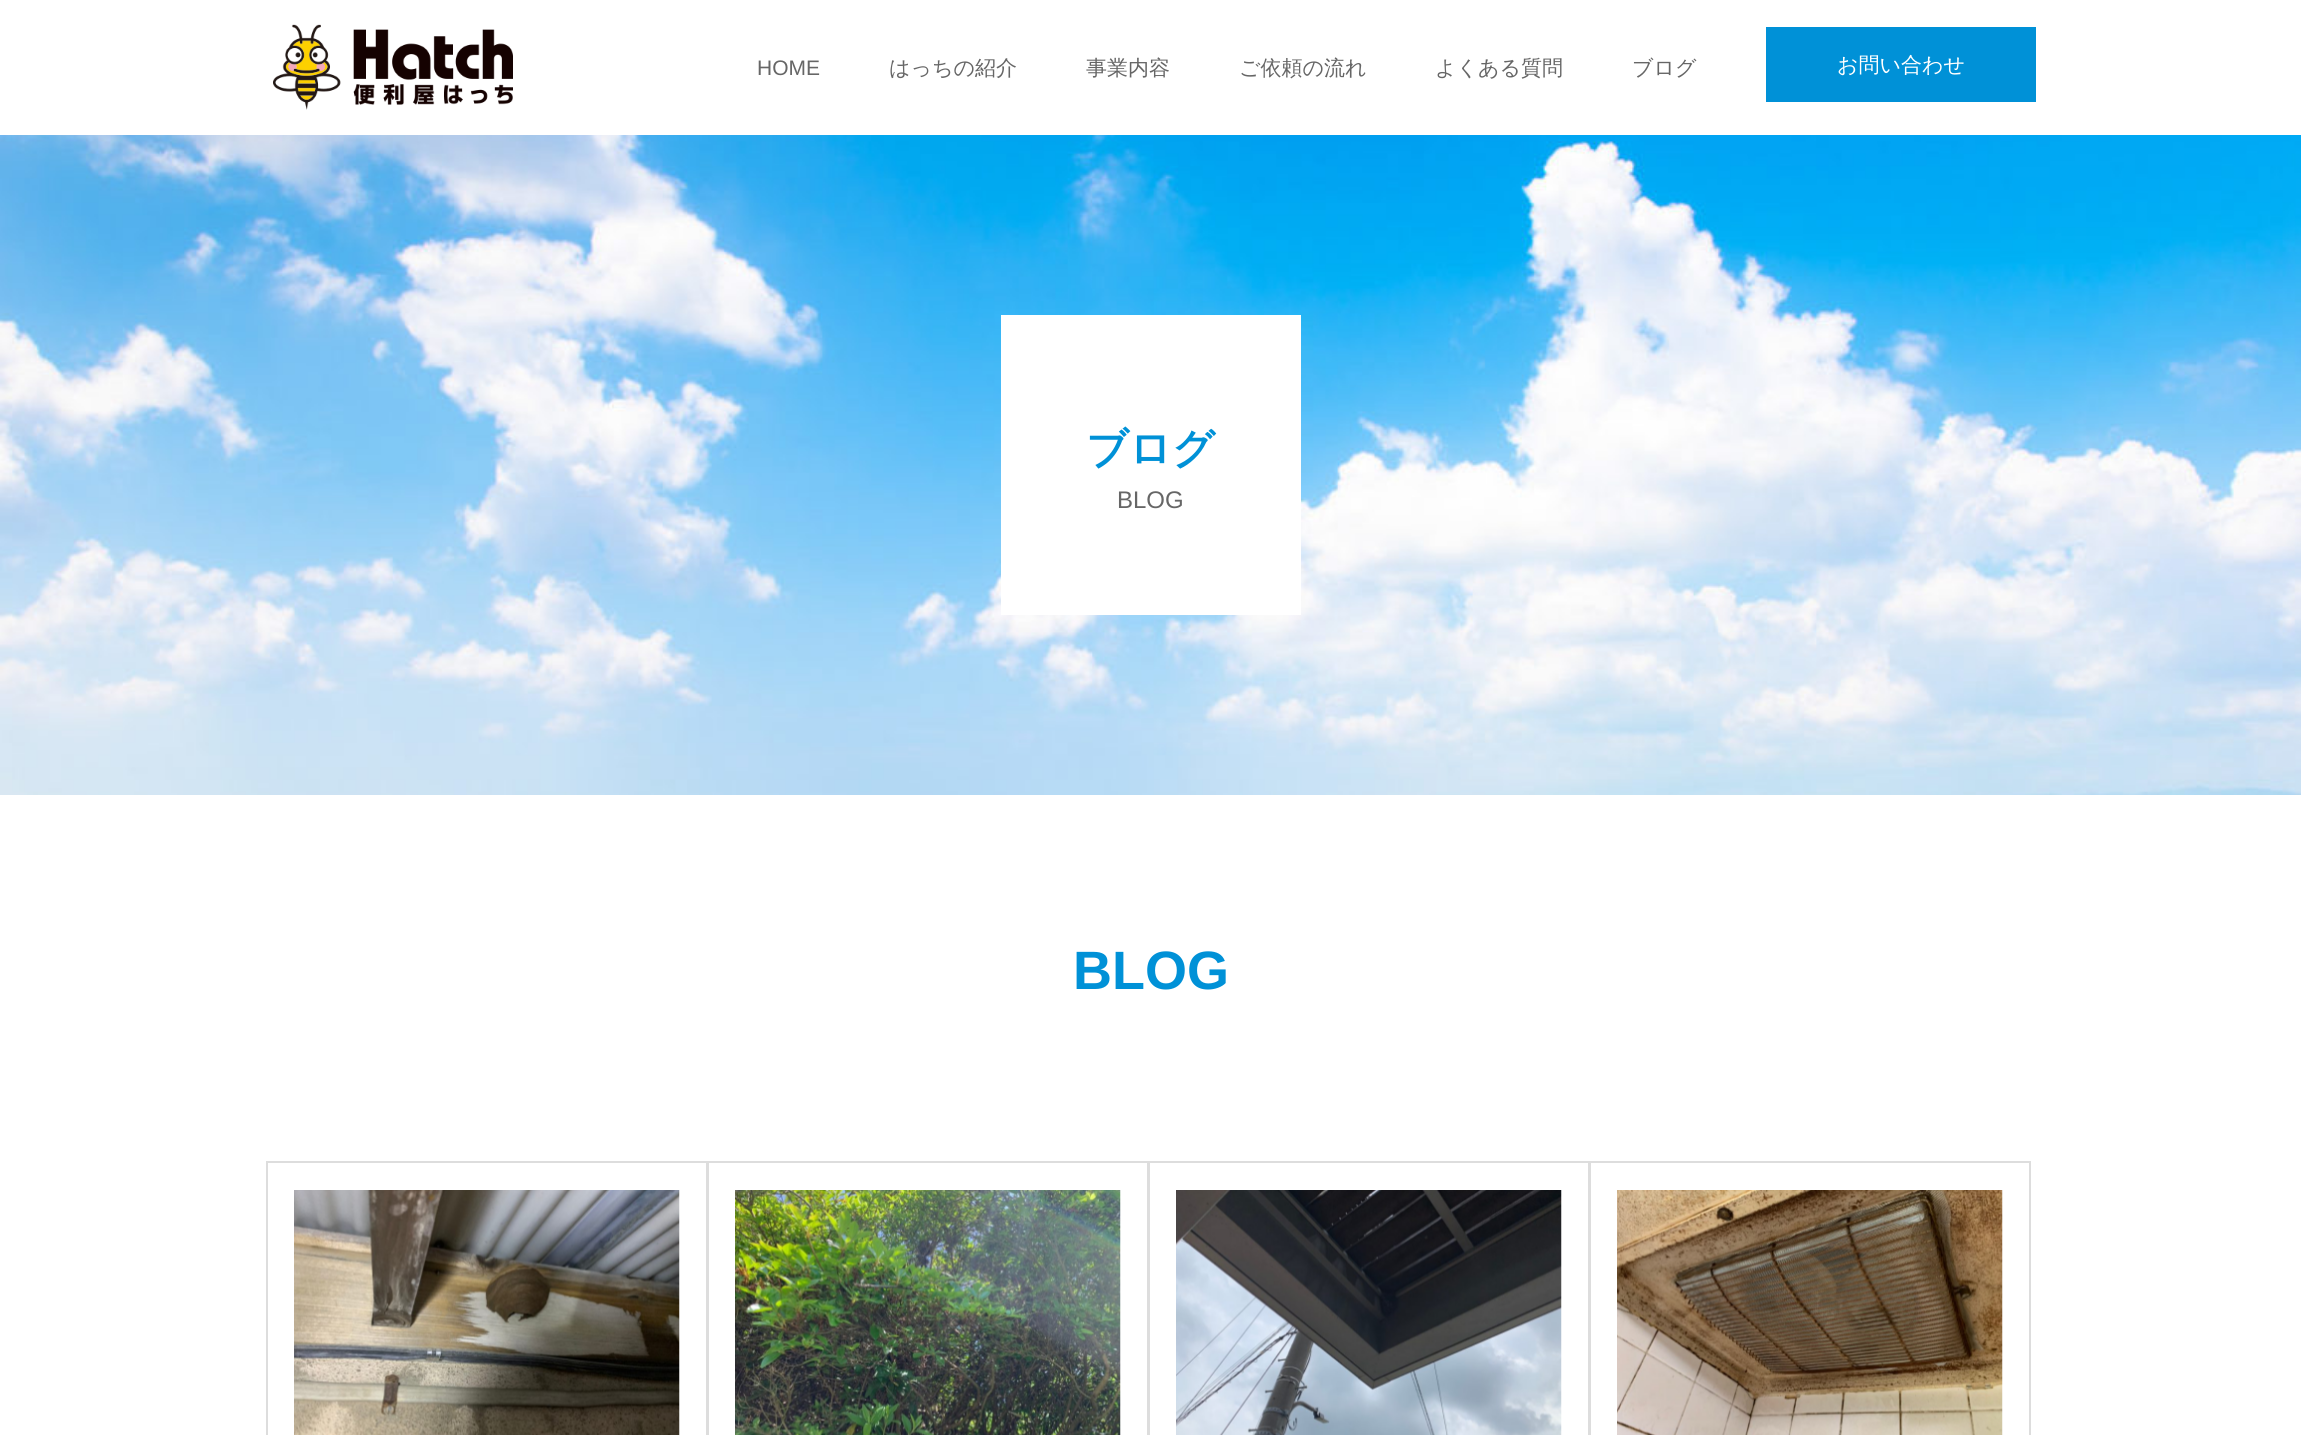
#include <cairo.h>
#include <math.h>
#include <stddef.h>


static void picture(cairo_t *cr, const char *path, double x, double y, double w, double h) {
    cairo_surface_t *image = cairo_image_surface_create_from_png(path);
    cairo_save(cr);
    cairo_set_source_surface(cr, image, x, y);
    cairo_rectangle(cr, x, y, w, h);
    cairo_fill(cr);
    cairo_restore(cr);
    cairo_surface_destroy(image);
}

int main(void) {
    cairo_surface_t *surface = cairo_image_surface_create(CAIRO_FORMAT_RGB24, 2301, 1435);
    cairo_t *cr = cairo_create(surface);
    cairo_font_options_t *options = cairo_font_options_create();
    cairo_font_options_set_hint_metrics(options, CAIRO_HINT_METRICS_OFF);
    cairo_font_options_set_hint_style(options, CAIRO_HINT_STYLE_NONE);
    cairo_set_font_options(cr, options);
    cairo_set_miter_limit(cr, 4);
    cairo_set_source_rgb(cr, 1, 1, 1);
    cairo_paint(cr);
    picture(cr, "img1.png", 273, 24, 240, 86);
    cairo_select_font_face(cr, "Liberation Sans", CAIRO_FONT_SLANT_NORMAL, CAIRO_FONT_WEIGHT_NORMAL);
    cairo_set_font_size(cr, 21);
    cairo_set_source_rgb(cr, 0.4, 0.4, 0.4);
    cairo_move_to(cr, 757, 75);
    cairo_show_text(cr, "HOME");
    cairo_select_font_face(cr, "WenQuanYi Zen Hei Medium", CAIRO_FONT_SLANT_NORMAL, CAIRO_FONT_WEIGHT_NORMAL);
    cairo_move_to(cr, 889, 75);
    cairo_show_text(cr, "はっちの紹介");
    cairo_move_to(cr, 1086, 75);
    cairo_show_text(cr, "事業内容");
    cairo_move_to(cr, 1239, 75);
    cairo_show_text(cr, "ご依頼の流れ");
    cairo_move_to(cr, 1435, 75);
    cairo_show_text(cr, "よくある質問");
    cairo_move_to(cr, 1632, 75);
    cairo_show_text(cr, "ブログ");
    cairo_set_source_rgb(cr, 0, 0.569, 0.843);
    cairo_rectangle(cr, 1766, 27, 270, 75);
    cairo_fill(cr);
    cairo_set_source_rgb(cr, 1, 1, 1);
    cairo_move_to(cr, 1837, 72);
    cairo_show_text(cr, "お問い合わせ");
    picture(cr, "img2.png", 0, 135, 2301, 660);
    cairo_rectangle(cr, 1001, 315, 300, 300);
    cairo_fill(cr);
    cairo_select_font_face(cr, "WenQuanYi Zen Hei", CAIRO_FONT_SLANT_NORMAL, CAIRO_FONT_WEIGHT_BOLD);
    cairo_set_font_size(cr, 42);
    cairo_set_source_rgb(cr, 0, 0.569, 0.843);
    cairo_move_to(cr, 1086, 463);
    cairo_show_text(cr, "ブログ");
    cairo_select_font_face(cr, "Liberation Sans", CAIRO_FONT_SLANT_NORMAL, CAIRO_FONT_WEIGHT_NORMAL);
    cairo_set_font_size(cr, 24);
    cairo_set_source_rgb(cr, 0.4, 0.4, 0.4);
    cairo_move_to(cr, 1117, 508);
    cairo_show_text(cr, "BLOG");
    cairo_select_font_face(cr, "Liberation Sans", CAIRO_FONT_SLANT_NORMAL, CAIRO_FONT_WEIGHT_BOLD);
    cairo_set_font_size(cr, 54);
    cairo_set_source_rgb(cr, 0, 0.569, 0.843);
    cairo_move_to(cr, 1073, 989);
    cairo_show_text(cr, "BLOG");
    cairo_rectangle(cr, 267, 1162, 440, 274);
    cairo_set_source_rgb(cr, 0.867, 0.867, 0.867);
    cairo_stroke(cr);
    picture(cr, "img3.png", 294, 1190, 386, 245);
    cairo_rectangle(cr, 708, 1162, 440, 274);
    cairo_stroke(cr);
    picture(cr, "img4.png", 735, 1190, 386, 245);
    cairo_rectangle(cr, 1149, 1162, 440, 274);
    cairo_stroke(cr);
    picture(cr, "img5.png", 1176, 1190, 386, 245);
    cairo_rectangle(cr, 1590, 1162, 440, 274);
    cairo_stroke(cr);
    picture(cr, "img6.png", 1617, 1190, 386, 245);
    cairo_surface_write_to_png(surface, "page.png");
    cairo_font_options_destroy(options);
    cairo_destroy(cr);
    cairo_surface_destroy(surface);
    return 0;
}
